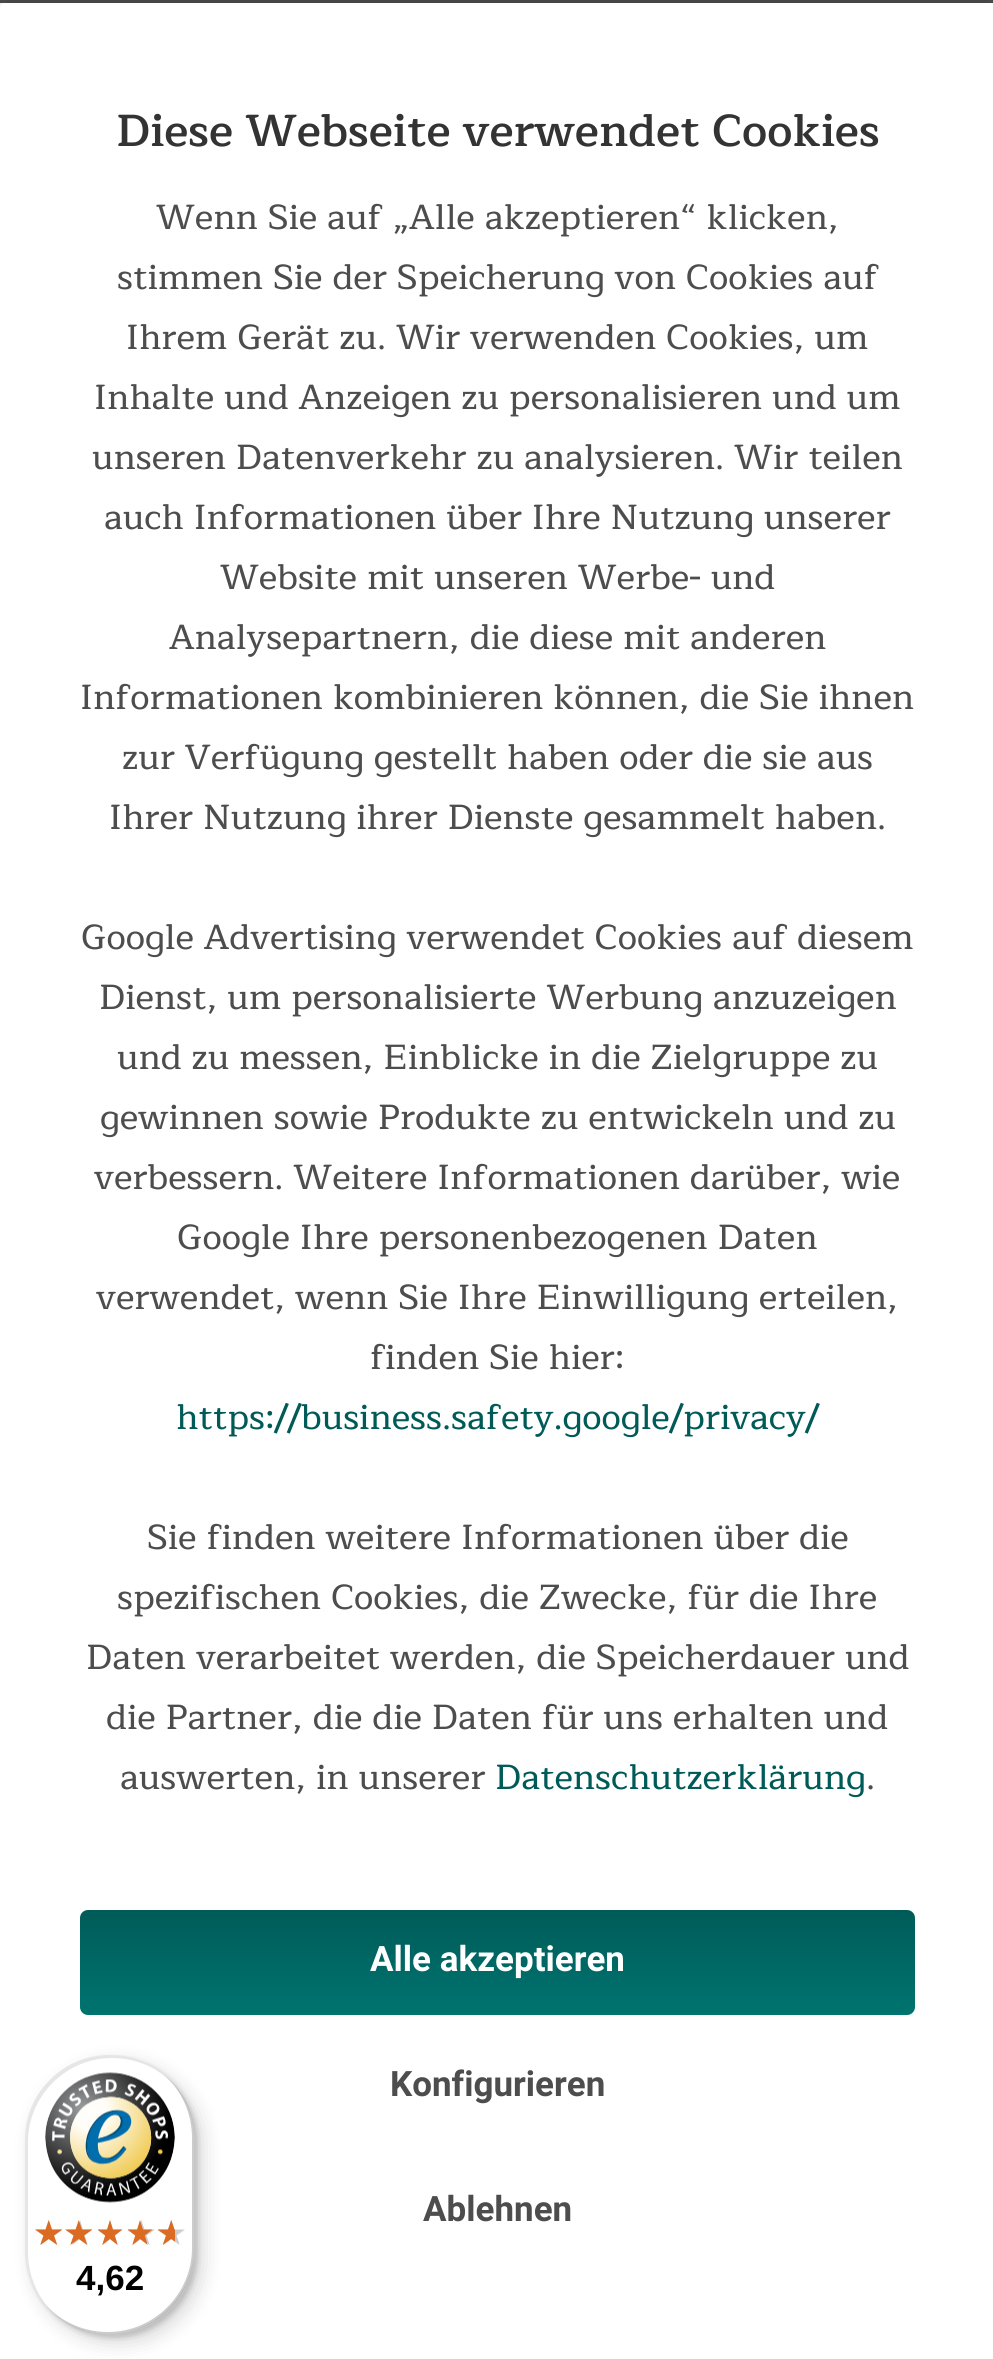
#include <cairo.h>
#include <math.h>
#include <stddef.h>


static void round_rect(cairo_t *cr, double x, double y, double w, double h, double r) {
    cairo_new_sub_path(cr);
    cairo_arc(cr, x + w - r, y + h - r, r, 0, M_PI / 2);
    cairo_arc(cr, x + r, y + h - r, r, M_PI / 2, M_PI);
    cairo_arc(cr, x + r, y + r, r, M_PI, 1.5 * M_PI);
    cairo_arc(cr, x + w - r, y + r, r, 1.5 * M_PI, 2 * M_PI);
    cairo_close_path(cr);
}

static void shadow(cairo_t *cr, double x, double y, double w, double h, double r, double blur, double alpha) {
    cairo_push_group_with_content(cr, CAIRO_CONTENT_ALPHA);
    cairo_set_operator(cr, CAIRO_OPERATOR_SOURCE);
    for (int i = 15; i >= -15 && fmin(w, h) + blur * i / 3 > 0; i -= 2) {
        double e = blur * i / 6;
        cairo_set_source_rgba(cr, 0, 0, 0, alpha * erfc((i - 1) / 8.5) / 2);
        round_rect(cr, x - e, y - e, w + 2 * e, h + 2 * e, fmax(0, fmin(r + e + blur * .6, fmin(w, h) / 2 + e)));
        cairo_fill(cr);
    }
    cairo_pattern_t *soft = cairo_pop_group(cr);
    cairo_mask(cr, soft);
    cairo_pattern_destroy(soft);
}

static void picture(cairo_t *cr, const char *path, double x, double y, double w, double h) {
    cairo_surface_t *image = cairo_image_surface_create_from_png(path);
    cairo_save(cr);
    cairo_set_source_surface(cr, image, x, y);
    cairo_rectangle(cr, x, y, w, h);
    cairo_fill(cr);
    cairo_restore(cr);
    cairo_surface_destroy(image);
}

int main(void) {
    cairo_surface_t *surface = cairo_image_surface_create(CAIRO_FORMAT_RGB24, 993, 2359);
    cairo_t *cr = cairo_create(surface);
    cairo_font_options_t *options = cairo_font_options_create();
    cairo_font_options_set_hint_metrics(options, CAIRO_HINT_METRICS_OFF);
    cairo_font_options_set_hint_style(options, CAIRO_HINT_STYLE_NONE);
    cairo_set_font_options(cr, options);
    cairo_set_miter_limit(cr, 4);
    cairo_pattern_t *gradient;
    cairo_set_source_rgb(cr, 1, 1, 1);
    cairo_paint(cr);
    cairo_set_source_rgb(cr, 0.302, 0.302, 0.302);
    cairo_rectangle(cr, 0, 0, 993, 3);
    cairo_fill(cr);
    cairo_set_source_rgb(cr, 0, 0, 0);
    shadow(cr, 10, 13, 975, 2340, 0, 12.5, 0.6);
    cairo_set_source_rgb(cr, 1, 1, 1);
    round_rect(cr, 0, 3, 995, 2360, 5);
    cairo_fill(cr);
    cairo_select_font_face(cr, "Maitree SemiBold", CAIRO_FONT_SLANT_NORMAL, CAIRO_FONT_WEIGHT_NORMAL);
    cairo_set_font_size(cr, 45);
    cairo_set_source_rgb(cr, 0.2, 0.2, 0.2);
    cairo_move_to(cr, 116, 146);
    cairo_show_text(cr, "Diese Webseite verwendet Cookies");
    cairo_select_font_face(cr, "Maitree Medium", CAIRO_FONT_SLANT_NORMAL, CAIRO_FONT_WEIGHT_NORMAL);
    cairo_set_font_size(cr, 35);
    cairo_set_source_rgb(cr, 0.302, 0.302, 0.302);
    cairo_move_to(cr, 156, 229);
    cairo_show_text(cr, "Wenn Sie auf „Alle akzeptieren“ klicken,");
    cairo_move_to(cr, 117, 289);
    cairo_show_text(cr, "stimmen Sie der Speicherung von Cookies auf");
    cairo_move_to(cr, 126, 349);
    cairo_show_text(cr, "Ihrem Gerät zu. Wir verwenden Cookies, um");
    cairo_move_to(cr, 94, 409);
    cairo_show_text(cr, "Inhalte und Anzeigen zu personalisieren und um");
    cairo_move_to(cr, 92, 469);
    cairo_show_text(cr, "unseren Datenverkehr zu analysieren. Wir teilen");
    cairo_move_to(cr, 104, 529);
    cairo_show_text(cr, "auch Informationen über Ihre Nutzung unserer");
    cairo_move_to(cr, 220, 589);
    cairo_show_text(cr, "Website mit unseren Werbe- und");
    cairo_move_to(cr, 169, 649);
    cairo_show_text(cr, "Analysepartnern, die diese mit anderen");
    cairo_move_to(cr, 80, 709);
    cairo_show_text(cr, "Informationen kombinieren können, die Sie ihnen");
    cairo_move_to(cr, 122, 769);
    cairo_show_text(cr, "zur Verfügung gestellt haben oder die sie aus");
    cairo_move_to(cr, 109, 829);
    cairo_show_text(cr, "Ihrer Nutzung ihrer Dienste gesammelt haben.");
    cairo_move_to(cr, 81, 949);
    cairo_show_text(cr, "Google Advertising verwendet Cookies auf diesem");
    cairo_move_to(cr, 99, 1009);
    cairo_show_text(cr, "Dienst, um personalisierte Werbung anzuzeigen");
    cairo_move_to(cr, 117, 1069);
    cairo_show_text(cr, "und zu messen, Einblicke in die Zielgruppe zu");
    cairo_move_to(cr, 100, 1129);
    cairo_show_text(cr, "gewinnen sowie Produkte zu entwickeln und zu");
    cairo_move_to(cr, 94, 1189);
    cairo_show_text(cr, "verbessern. Weitere Informationen darüber, wie");
    cairo_move_to(cr, 177, 1249);
    cairo_show_text(cr, "Google Ihre personenbezogenen Daten");
    cairo_move_to(cr, 96, 1309);
    cairo_show_text(cr, "verwendet, wenn Sie Ihre Einwilligung erteilen,");
    cairo_move_to(cr, 370, 1369);
    cairo_show_text(cr, "finden Sie hier:");
    cairo_set_source_rgb(cr, 0, 0.357, 0.345);
    cairo_move_to(cr, 176, 1429);
    cairo_show_text(cr, "https://business.safety.google/privacy/");
    cairo_set_source_rgb(cr, 0.302, 0.302, 0.302);
    cairo_move_to(cr, 147, 1549);
    cairo_show_text(cr, "Sie finden weitere Informationen über die");
    cairo_move_to(cr, 117, 1609);
    cairo_show_text(cr, "spezifischen Cookies, die Zwecke, für die Ihre");
    cairo_move_to(cr, 86, 1669);
    cairo_show_text(cr, "Daten verarbeitet werden, die Speicherdauer und");
    cairo_move_to(cr, 106, 1729);
    cairo_show_text(cr, "die Partner, die die Daten für uns erhalten und");
    cairo_move_to(cr, 120, 1789);
    cairo_show_text(cr, "auswerten, in unserer");
    cairo_set_source_rgb(cr, 0, 0.357, 0.345);
    cairo_move_to(cr, 495, 1789);
    cairo_show_text(cr, "Datenschutzerklärung");
    cairo_set_source_rgb(cr, 0.302, 0.302, 0.302);
    cairo_move_to(cr, 866, 1789);
    cairo_show_text(cr, ".");
    gradient = cairo_pattern_create_linear(498, 1910, 498, 2015);
    cairo_pattern_add_color_stop_rgba(gradient, 0, 0, 0.357, 0.345, 1);
    cairo_pattern_add_color_stop_rgba(gradient, 1, 0, 0.455, 0.439, 1);
    cairo_set_source(cr, gradient);
    cairo_pattern_destroy(gradient);
    round_rect(cr, 80, 1910, 835, 105, 8);
    cairo_fill(cr);
    cairo_select_font_face(cr, "Roboto", CAIRO_FONT_SLANT_NORMAL, CAIRO_FONT_WEIGHT_BOLD);
    cairo_set_source_rgb(cr, 1, 1, 1);
    cairo_move_to(cr, 370, 1971);
    cairo_show_text(cr, "Alle akzeptieren");
    cairo_set_source_rgb(cr, 0.302, 0.302, 0.302);
    cairo_move_to(cr, 390, 2096);
    cairo_show_text(cr, "Konfigurieren");
    cairo_move_to(cr, 423, 2221);
    cairo_show_text(cr, "Ablehnen");
    cairo_set_source_rgb(cr, 0, 0, 0);
    shadow(cr, 33, 2063, 170, 280, 85, 10, 0.15);
    shadow(cr, 28, 2058, 170, 280, 85, 2.5, 0.15);
    cairo_set_source_rgb(cr, 1, 1, 1);
    round_rect(cr, 25, 2055, 170, 280, 85);
    cairo_fill(cr);
    cairo_set_source_rgba(cr, 0, 0, 0, 0.1);
    cairo_new_path(cr);
    cairo_move_to(cr, 112, 2058);
    cairo_curve_to(cr, 136, 2058, 159, 2068, 174, 2085);
    cairo_curve_to(cr, 159, 2066, 136, 2055, 110, 2055);
    cairo_curve_to(cr, 63, 2055, 25, 2093, 25, 2140);
    cairo_line_to(cr, 25, 2250);
    cairo_curve_to(cr, 25, 2276, 36, 2299, 55, 2314);
    cairo_curve_to(cr, 38, 2299, 28, 2276, 28, 2252);
    cairo_line_to(cr, 28, 2142);
    cairo_curve_to(cr, 28, 2096, 66, 2058, 112, 2058);
    cairo_close_path(cr);
    cairo_fill(cr);
    cairo_set_source_rgba(cr, 0, 0, 0, 0.2);
    cairo_new_path(cr);
    cairo_move_to(cr, 46, 2305);
    cairo_curve_to(cr, 61, 2324, 84, 2335, 110, 2335);
    cairo_curve_to(cr, 157, 2335, 195, 2297, 195, 2250);
    cairo_line_to(cr, 195, 2140);
    cairo_curve_to(cr, 195, 2114, 184, 2091, 165, 2076);
    cairo_curve_to(cr, 182, 2091, 192, 2114, 192, 2138);
    cairo_line_to(cr, 192, 2248);
    cairo_curve_to(cr, 192, 2294, 154, 2332, 108, 2332);
    cairo_curve_to(cr, 84, 2332, 61, 2322, 46, 2305);
    cairo_close_path(cr);
    cairo_fill(cr);
    cairo_set_source_rgba(cr, 0.196, 0.196, 0.196, 0.2);
    cairo_new_path(cr);
    cairo_move_to(cr, 36, 2293);
    cairo_curve_to(cr, 51, 2318, 79, 2335, 110, 2335);
    cairo_curve_to(cr, 157, 2335, 195, 2297, 195, 2250);
    cairo_line_to(cr, 195, 2140);
    cairo_curve_to(cr, 195, 2109, 179, 2083, 155, 2068);
    cairo_curve_to(cr, 178, 2083, 194, 2109, 194, 2138);
    cairo_line_to(cr, 194, 2248);
    cairo_curve_to(cr, 194, 2295, 155, 2334, 109, 2334);
    cairo_curve_to(cr, 78, 2334, 51, 2317, 36, 2293);
    cairo_close_path(cr);
    cairo_fill(cr);
    cairo_set_source_rgba(cr, 1, 1, 1, 0.3);
    cairo_new_path(cr);
    cairo_move_to(cr, 51, 2311);
    cairo_curve_to(cr, 66, 2326, 87, 2335, 110, 2335);
    cairo_curve_to(cr, 157, 2335, 195, 2297, 195, 2250);
    cairo_line_to(cr, 195, 2140);
    cairo_curve_to(cr, 195, 2117, 186, 2096, 171, 2081);
    cairo_curve_to(cr, 185, 2096, 194, 2116, 194, 2139);
    cairo_line_to(cr, 194, 2249);
    cairo_curve_to(cr, 194, 2296, 156, 2334, 109, 2334);
    cairo_curve_to(cr, 86, 2334, 66, 2325, 51, 2311);
    cairo_close_path(cr);
    cairo_fill(cr);
    picture(cr, "img1.png", 45, 2072, 130, 131);
    picture(cr, "img2.png", 35, 2220, 27, 25);
    picture(cr, "img3.png", 68, 2220, 24, 25);
    picture(cr, "img4.png", 98, 2220, 24, 25);
    picture(cr, "img5.png", 128, 2220, 27, 25);
    picture(cr, "img6.png", 158, 2220, 27, 25);
    picture(cr, "img7.png", 35, 2220, 27, 25);
    picture(cr, "img8.png", 65, 2220, 27, 25);
    picture(cr, "img9.png", 98, 2220, 25, 25);
    picture(cr, "img10.png", 128, 2220, 25, 25);
    picture(cr, "img11.png", 158, 2220, 17, 25);
    cairo_select_font_face(cr, "Liberation Sans", CAIRO_FONT_SLANT_NORMAL, CAIRO_FONT_WEIGHT_BOLD);
    cairo_set_source_rgb(cr, 0, 0, 0);
    cairo_move_to(cr, 76, 2290);
    cairo_show_text(cr, "4,62");
    cairo_surface_write_to_png(surface, "page.png");
    cairo_font_options_destroy(options);
    cairo_destroy(cr);
    cairo_surface_destroy(surface);
    return 0;
}
